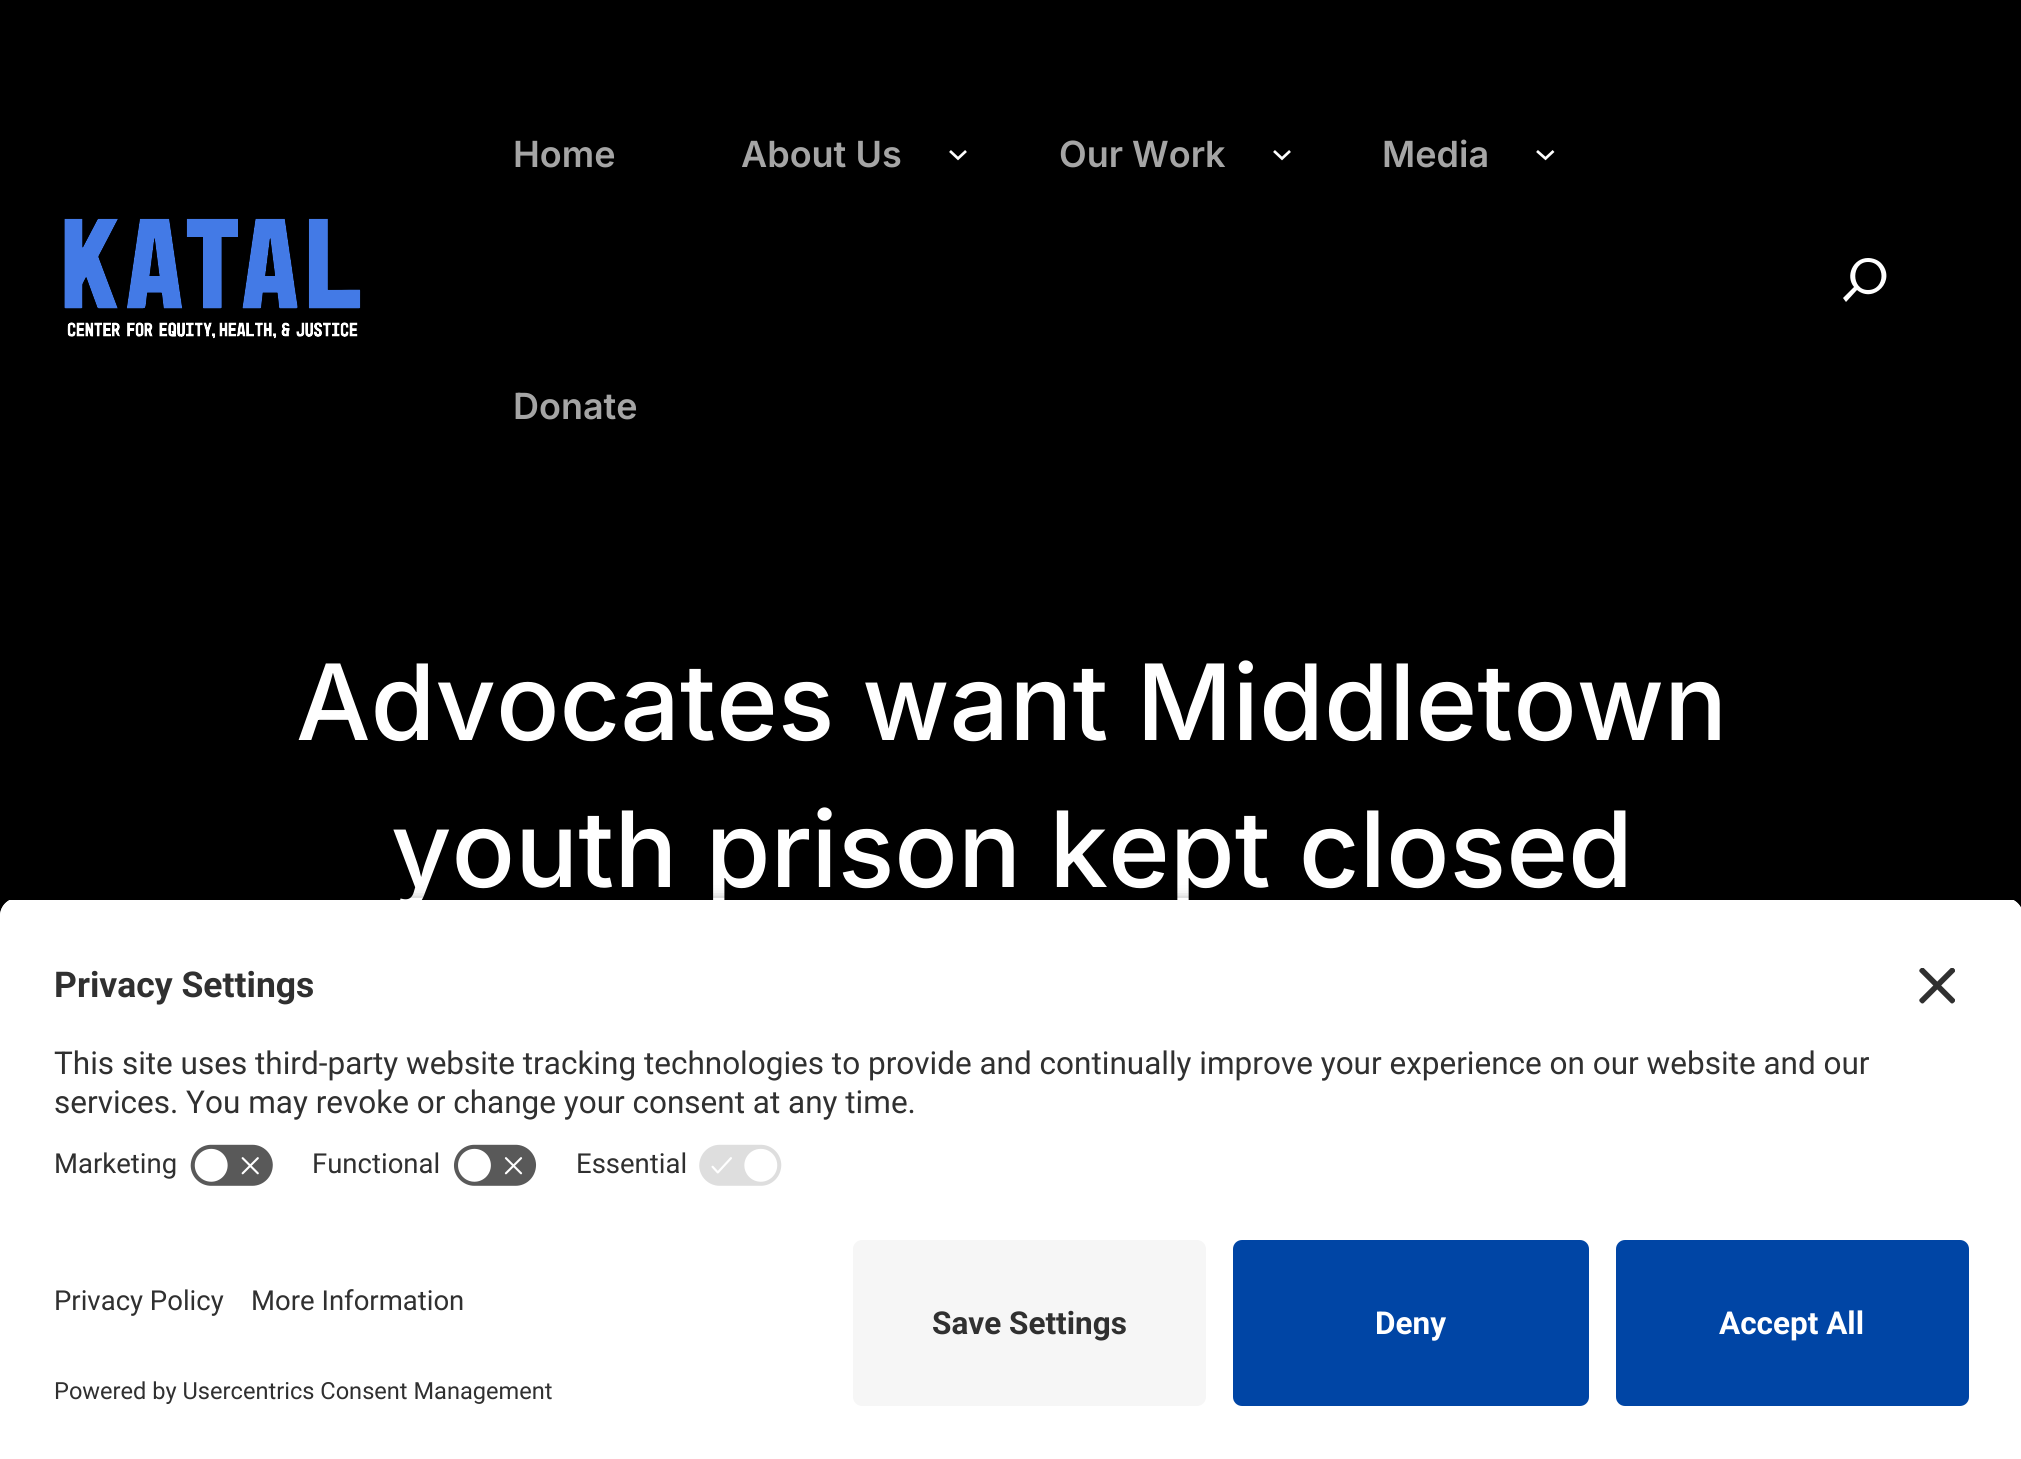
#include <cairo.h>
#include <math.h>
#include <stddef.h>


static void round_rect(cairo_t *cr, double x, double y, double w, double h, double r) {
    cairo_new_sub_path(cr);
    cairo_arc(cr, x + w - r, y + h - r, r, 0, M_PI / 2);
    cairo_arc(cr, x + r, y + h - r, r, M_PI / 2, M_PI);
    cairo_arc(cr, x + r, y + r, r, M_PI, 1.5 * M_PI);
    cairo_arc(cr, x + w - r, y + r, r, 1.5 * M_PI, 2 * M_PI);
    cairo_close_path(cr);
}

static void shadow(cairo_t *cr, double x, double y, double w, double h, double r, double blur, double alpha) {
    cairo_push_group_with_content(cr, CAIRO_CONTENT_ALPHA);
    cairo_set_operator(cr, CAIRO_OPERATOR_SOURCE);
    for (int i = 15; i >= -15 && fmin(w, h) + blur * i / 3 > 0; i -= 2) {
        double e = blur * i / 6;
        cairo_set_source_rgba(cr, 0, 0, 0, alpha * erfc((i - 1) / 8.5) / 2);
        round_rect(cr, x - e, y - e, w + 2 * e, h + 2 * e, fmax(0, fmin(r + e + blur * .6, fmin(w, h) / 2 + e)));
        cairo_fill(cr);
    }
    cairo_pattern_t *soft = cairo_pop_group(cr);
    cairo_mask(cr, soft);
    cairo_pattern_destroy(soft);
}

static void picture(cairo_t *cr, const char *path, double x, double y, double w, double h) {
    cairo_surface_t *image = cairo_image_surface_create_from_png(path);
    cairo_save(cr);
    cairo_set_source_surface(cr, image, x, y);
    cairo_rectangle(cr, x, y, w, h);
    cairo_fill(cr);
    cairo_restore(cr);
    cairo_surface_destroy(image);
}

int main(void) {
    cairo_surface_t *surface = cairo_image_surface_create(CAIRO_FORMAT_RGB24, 2021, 1459);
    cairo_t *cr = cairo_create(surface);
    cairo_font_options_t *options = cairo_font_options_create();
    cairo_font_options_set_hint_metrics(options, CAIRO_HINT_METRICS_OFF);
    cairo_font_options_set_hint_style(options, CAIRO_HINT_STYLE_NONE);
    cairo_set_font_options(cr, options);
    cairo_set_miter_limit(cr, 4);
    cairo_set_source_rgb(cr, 0, 0, 0);
    cairo_paint(cr);
    picture(cr, "img1.png", 64, 218, 297, 121);
    cairo_select_font_face(cr, "Inter SemiBold", CAIRO_FONT_SLANT_NORMAL, CAIRO_FONT_WEIGHT_NORMAL);
    cairo_set_font_size(cr, 36);
    cairo_set_source_rgb(cr, 0.647, 0.647, 0.647);
    cairo_move_to(cr, 513, 167);
    cairo_show_text(cr, "Home");
    cairo_move_to(cr, 741, 167);
    cairo_show_text(cr, "About Us");
    cairo_new_path(cr);
    cairo_move_to(cr, 950, 151);
    cairo_line_to(cr, 958, 158.5);
    cairo_line_to(cr, 966, 151);
    cairo_set_source_rgb(cr, 1, 1, 1);
    cairo_set_line_width(cr, 2.7);
    cairo_stroke(cr);
    cairo_set_source_rgb(cr, 0.647, 0.647, 0.647);
    cairo_move_to(cr, 1059, 167);
    cairo_show_text(cr, "Our Work");
    cairo_new_path(cr);
    cairo_move_to(cr, 1274, 151);
    cairo_line_to(cr, 1282, 158.5);
    cairo_line_to(cr, 1290, 151);
    cairo_set_source_rgb(cr, 1, 1, 1);
    cairo_stroke(cr);
    cairo_set_source_rgb(cr, 0.647, 0.647, 0.647);
    cairo_move_to(cr, 1382, 167);
    cairo_show_text(cr, "Media");
    cairo_new_path(cr);
    cairo_move_to(cr, 1537, 151);
    cairo_line_to(cr, 1545.5, 158.5);
    cairo_line_to(cr, 1553.5, 151);
    cairo_set_source_rgb(cr, 1, 1, 1);
    cairo_stroke(cr);
    cairo_set_source_rgb(cr, 0.647, 0.647, 0.647);
    cairo_move_to(cr, 513, 419);
    cairo_show_text(cr, "Donate");
    cairo_set_source_rgb(cr, 1, 1, 1);
    cairo_new_path(cr);
    cairo_move_to(cr, 1868, 258);
    cairo_curve_to(cr, 1853, 258, 1845, 276, 1854, 287);
    cairo_line_to(cr, 1843, 298);
    cairo_line_to(cr, 1846, 302);
    cairo_line_to(cr, 1857, 290);
    cairo_curve_to(cr, 1874, 304, 1897, 280, 1881, 263);
    cairo_curve_to(cr, 1878, 260, 1873, 258, 1868, 258);
    cairo_close_path(cr);
    cairo_move_to(cr, 1868, 290);
    cairo_curve_to(cr, 1851, 290, 1851, 262, 1868, 262);
    cairo_curve_to(cr, 1886, 262, 1886, 290, 1868, 290);
    cairo_close_path(cr);
    cairo_fill(cr);
    cairo_select_font_face(cr, "Inter Medium", CAIRO_FONT_SLANT_NORMAL, CAIRO_FONT_WEIGHT_NORMAL);
    cairo_set_font_size(cr, 105.2);
    cairo_move_to(cr, 296, 740);
    cairo_show_text(cr, "Advocates want Middletown");
    cairo_move_to(cr, 391, 887);
    cairo_show_text(cr, "youth prison kept closed");
    cairo_save(cr);
    cairo_set_fill_rule(cr, CAIRO_FILL_RULE_EVEN_ODD);
    cairo_new_path(cr);
    cairo_move_to(cr, 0, 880);
    cairo_line_to(cr, 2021, 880);
    cairo_line_to(cr, 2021, 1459);
    cairo_line_to(cr, 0, 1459);
    cairo_close_path(cr);
    cairo_move_to(cr, 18, 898);
    cairo_line_to(cr, 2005, 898);
    cairo_curve_to(cr, 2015, 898, 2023, 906, 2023, 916);
    cairo_line_to(cr, 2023, 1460);
    cairo_line_to(cr, 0, 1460);
    cairo_line_to(cr, 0, 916);
    cairo_curve_to(cr, 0, 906, 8, 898, 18, 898);
    cairo_close_path(cr);
    cairo_clip(cr);
    cairo_set_source_rgb(cr, 0, 0, 0);
    shadow(cr, 0, 905, 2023, 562, 18, 8, 0.8);
    cairo_restore(cr);
    cairo_save(cr);
    cairo_new_path(cr);
    cairo_move_to(cr, 18, 898);
    cairo_line_to(cr, 2005, 898);
    cairo_curve_to(cr, 2015, 898, 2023, 906, 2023, 916);
    cairo_line_to(cr, 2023, 1222);
    cairo_line_to(cr, 0, 1222);
    cairo_line_to(cr, 0, 916);
    cairo_curve_to(cr, 0, 906, 8, 898, 18, 898);
    cairo_close_path(cr);
    cairo_clip(cr);
    cairo_rectangle(cr, 0, 900, 2021, 322);
    cairo_fill(cr);
    cairo_rectangle(cr, 0, 900, 2021, 232);
    cairo_fill(cr);
    cairo_restore(cr);
    cairo_select_font_face(cr, "Roboto", CAIRO_FONT_SLANT_NORMAL, CAIRO_FONT_WEIGHT_BOLD);
    cairo_set_font_size(cr, 35.5);
    cairo_set_source_rgb(cr, 0.188, 0.188, 0.188);
    cairo_move_to(cr, 54, 997);
    cairo_show_text(cr, "Privacy Settings");
    picture(cr, "img2.png", 1919, 968, 36, 36);
    cairo_select_font_face(cr, "Roboto", CAIRO_FONT_SLANT_NORMAL, CAIRO_FONT_WEIGHT_NORMAL);
    cairo_set_font_size(cr, 31.5);
    cairo_move_to(cr, 54, 1074);
    cairo_show_text(cr, "This site uses third-party website tracking technologies to provide and continually improve your experience on our website and our");
    cairo_move_to(cr, 54, 1113);
    cairo_show_text(cr, "services. You may revoke or change your consent at any time.");
    cairo_set_font_size(cr, 27.5);
    cairo_move_to(cr, 54, 1173);
    cairo_show_text(cr, "Marketing");
    picture(cr, "img3.png", 190, 1144, 83, 42);
    cairo_move_to(cr, 312, 1173);
    cairo_show_text(cr, "Functional");
    picture(cr, "img4.png", 453, 1144, 84, 42);
    cairo_move_to(cr, 576, 1173);
    cairo_show_text(cr, "Essential");
    picture(cr, "img5.png", 699, 1144, 83, 42);
    cairo_set_source_rgb(cr, 1, 1, 1);
    cairo_rectangle(cr, 0, 1222, 2021, 237);
    cairo_fill(cr);
    cairo_set_source_rgb(cr, 0.188, 0.188, 0.188);
    cairo_move_to(cr, 54, 1310);
    cairo_show_text(cr, "Privacy Policy");
    cairo_move_to(cr, 251, 1310);
    cairo_show_text(cr, "More Information");
    cairo_set_font_size(cr, 23.6);
    cairo_move_to(cr, 54, 1399);
    cairo_show_text(cr, "Powered by Usercentrics Consent Management");
    cairo_set_source_rgb(cr, 0.961, 0.961, 0.961);
    round_rect(cr, 853, 1240, 353, 166, 9);
    cairo_fill(cr);
    cairo_select_font_face(cr, "Roboto", CAIRO_FONT_SLANT_NORMAL, CAIRO_FONT_WEIGHT_BOLD);
    cairo_set_font_size(cr, 31.5);
    cairo_set_source_rgb(cr, 0.188, 0.188, 0.188);
    cairo_move_to(cr, 932, 1334);
    cairo_show_text(cr, "Save Settings");
    cairo_set_source_rgb(cr, 0, 0.271, 0.647);
    round_rect(cr, 1233, 1240, 356, 166, 9);
    cairo_fill(cr);
    cairo_set_source_rgb(cr, 1, 1, 1);
    cairo_move_to(cr, 1375, 1334);
    cairo_show_text(cr, "Deny");
    cairo_set_source_rgb(cr, 0, 0.271, 0.647);
    round_rect(cr, 1616, 1240, 353, 166, 9);
    cairo_fill(cr);
    cairo_set_source_rgb(cr, 1, 1, 1);
    cairo_move_to(cr, 1719, 1334);
    cairo_show_text(cr, "Accept All");
    cairo_surface_write_to_png(surface, "page.png");
    cairo_font_options_destroy(options);
    cairo_destroy(cr);
    cairo_surface_destroy(surface);
    return 0;
}
